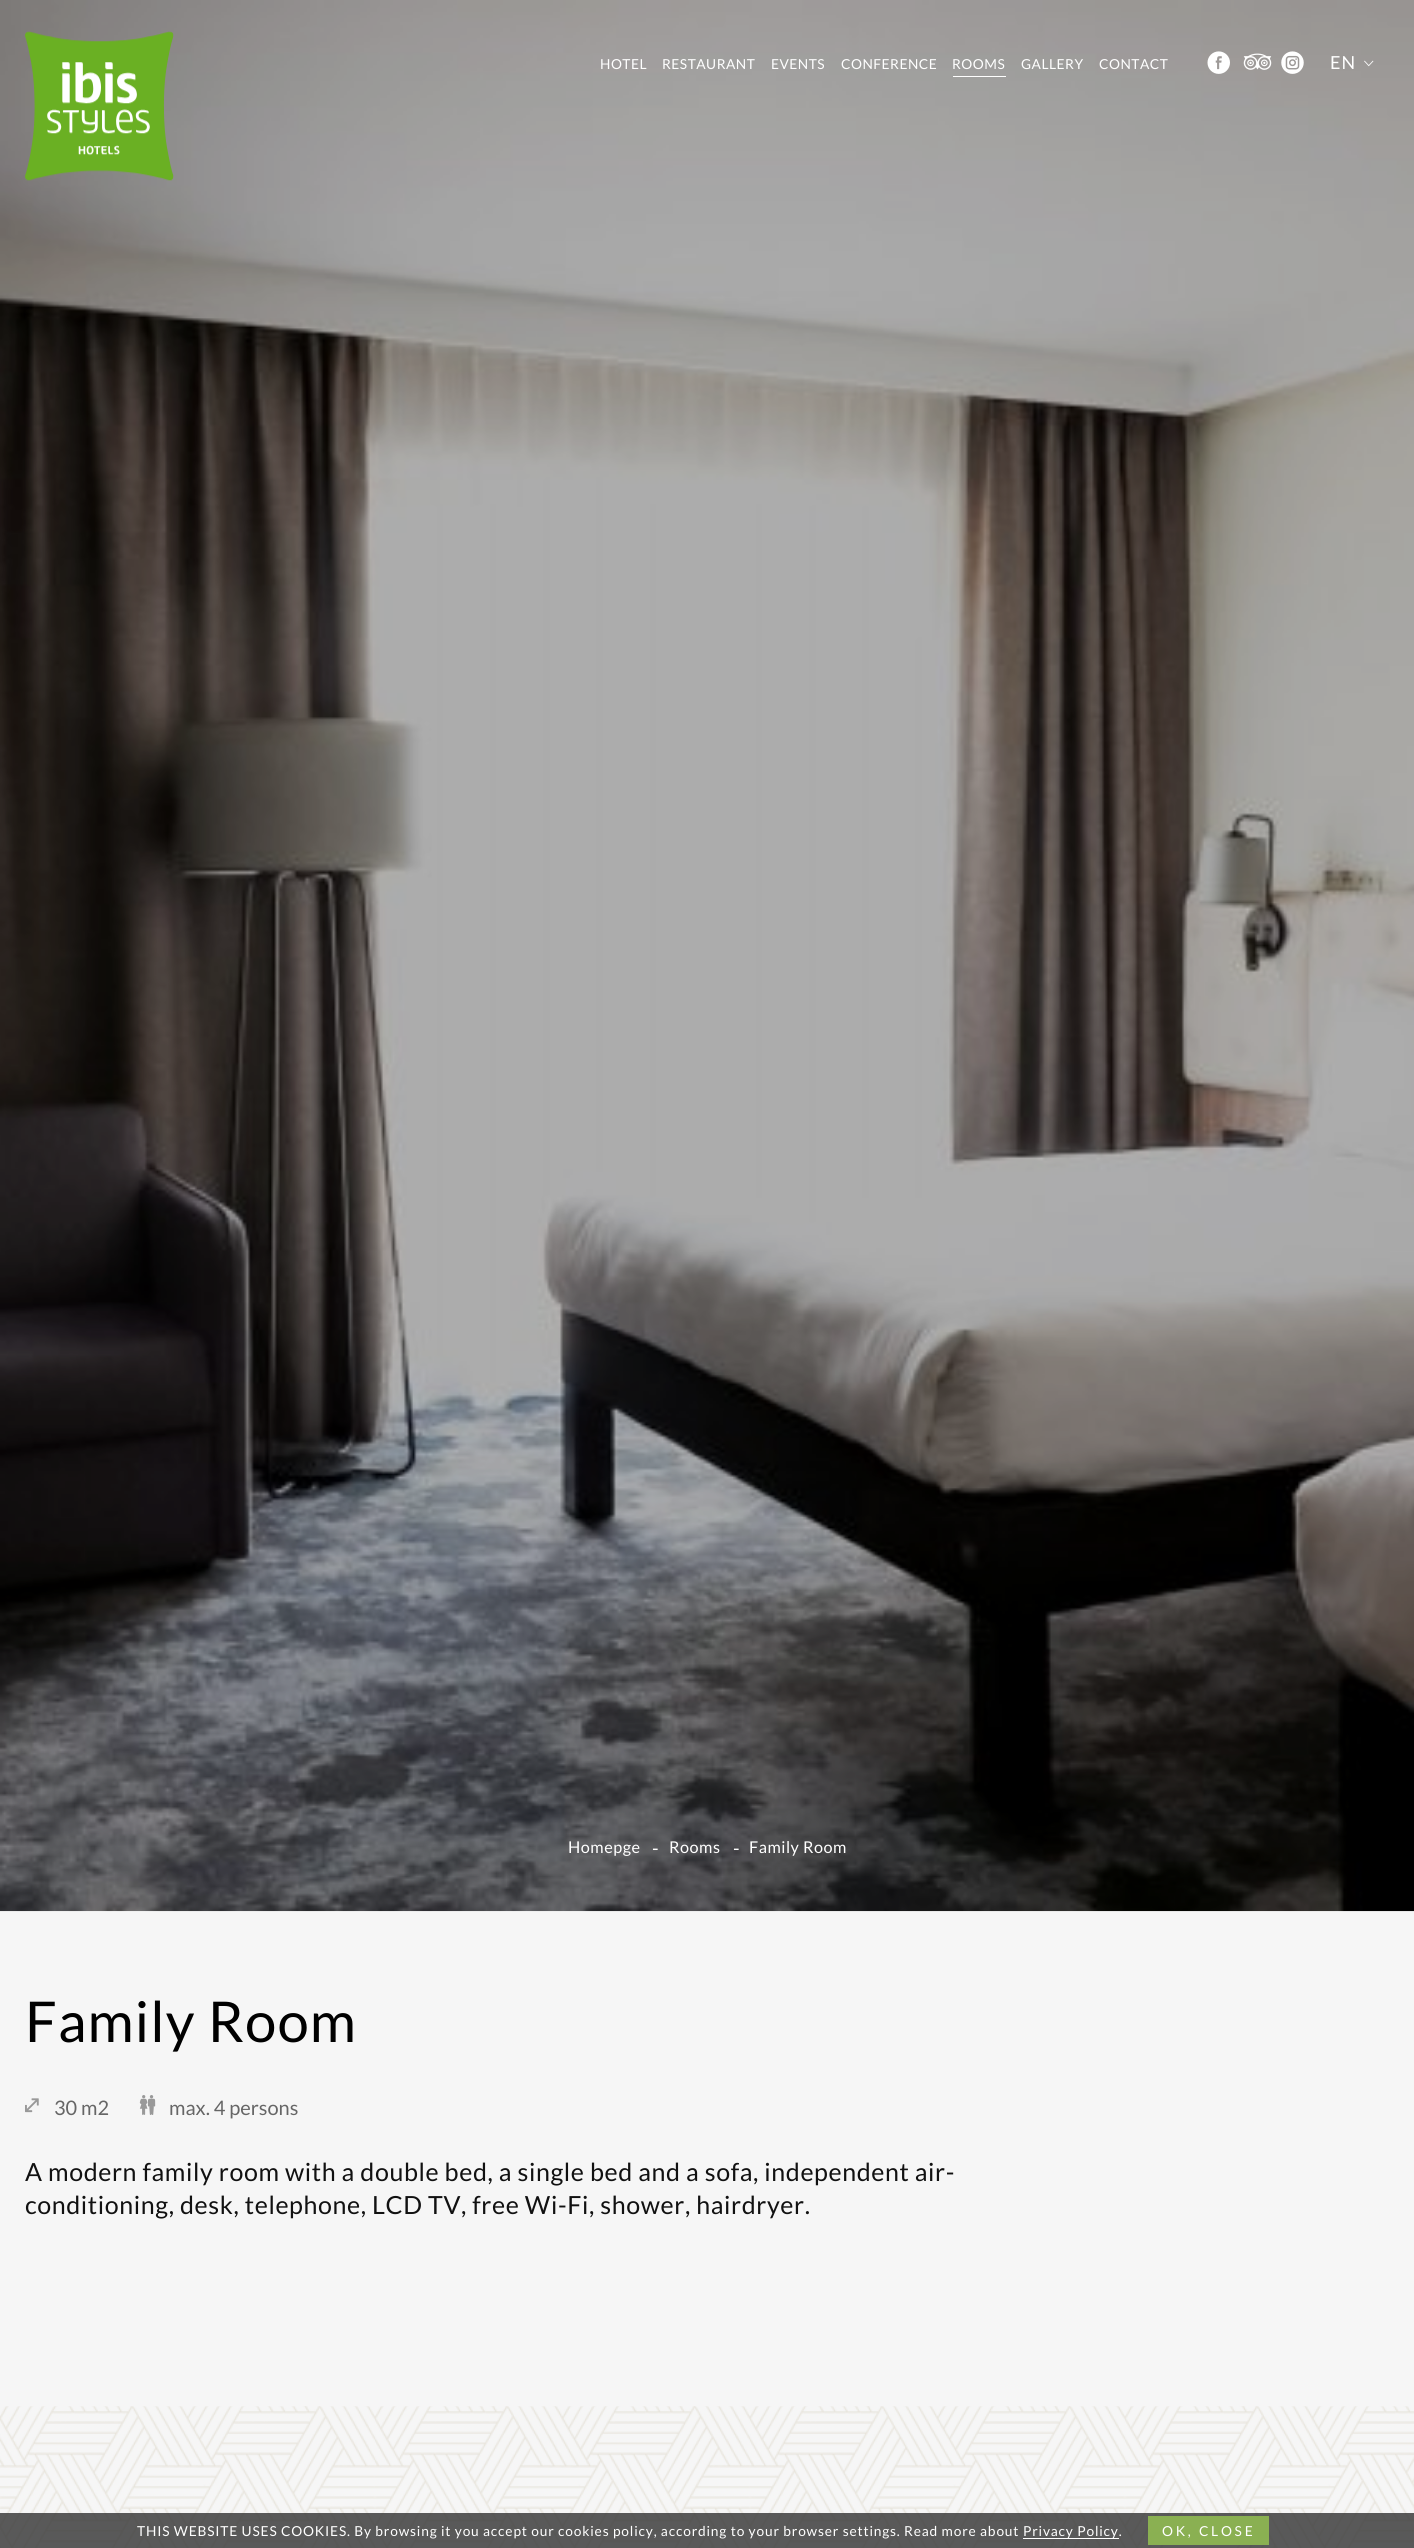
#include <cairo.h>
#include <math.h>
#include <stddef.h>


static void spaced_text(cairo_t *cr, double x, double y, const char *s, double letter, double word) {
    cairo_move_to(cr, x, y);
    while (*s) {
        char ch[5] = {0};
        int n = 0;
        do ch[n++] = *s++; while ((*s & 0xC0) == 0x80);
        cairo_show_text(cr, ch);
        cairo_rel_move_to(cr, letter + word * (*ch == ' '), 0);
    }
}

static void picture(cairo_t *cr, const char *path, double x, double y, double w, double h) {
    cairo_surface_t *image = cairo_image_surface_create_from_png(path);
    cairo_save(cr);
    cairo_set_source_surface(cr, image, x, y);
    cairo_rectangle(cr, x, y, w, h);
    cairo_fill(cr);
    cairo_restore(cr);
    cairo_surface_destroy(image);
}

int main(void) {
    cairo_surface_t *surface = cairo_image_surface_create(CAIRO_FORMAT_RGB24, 1414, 2548);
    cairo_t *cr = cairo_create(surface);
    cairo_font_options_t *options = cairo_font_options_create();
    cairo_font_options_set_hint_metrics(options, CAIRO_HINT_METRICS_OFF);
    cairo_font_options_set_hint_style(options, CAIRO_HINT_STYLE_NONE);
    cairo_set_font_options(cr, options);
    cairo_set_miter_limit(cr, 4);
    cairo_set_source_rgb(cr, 0.961, 0.961, 0.961);
    cairo_paint(cr);
    picture(cr, "img6.png", 0, 0, 1414, 1912);
    picture(cr, "img1.png", 25, 31, 149, 150);
    cairo_select_font_face(cr, "Lato", CAIRO_FONT_SLANT_NORMAL, CAIRO_FONT_WEIGHT_NORMAL);
    cairo_set_font_size(cr, 13.75);
    cairo_set_source_rgb(cr, 1, 1, 1);
    spaced_text(cr, 600, 69, "HOTEL", 0.5, 0);
    spaced_text(cr, 662, 69, "RESTAURANT", 0.5, 0);
    spaced_text(cr, 771, 69, "EVENTS", 0.5, 0);
    spaced_text(cr, 841, 69, "CONFERENCE", 0.5, 0);
    spaced_text(cr, 952, 69, "ROOMS", 0.5, 0);
    cairo_rectangle(cr, 953, 76, 53, 1);
    cairo_fill(cr);
    spaced_text(cr, 1021, 69, "GALLERY", 0.5, 0);
    spaced_text(cr, 1099, 69, "CONTACT", 0.5, 0);
    picture(cr, "img2.png", 1207, 51, 23, 23);
    picture(cr, "img3.png", 1243, 53, 29, 17);
    picture(cr, "img4.png", 1281, 51, 23, 23);
    cairo_set_font_size(cr, 18);
    spaced_text(cr, 1330, 69, "EN", 1, 0);
    picture(cr, "img5.png", 1364, 60, 10, 7);
    cairo_set_font_size(cr, 16.25);
    spaced_text(cr, 568, 1853, "Homepge", 0.5, 0);
    cairo_set_font_size(cr, 19);
    cairo_move_to(cr, 652, 1855);
    cairo_show_text(cr, "-");
    cairo_set_font_size(cr, 16.25);
    spaced_text(cr, 669, 1853, "Rooms", 0.5, 0);
    cairo_set_font_size(cr, 19);
    cairo_move_to(cr, 733, 1855);
    cairo_show_text(cr, "-");
    cairo_set_font_size(cr, 16.25);
    spaced_text(cr, 749, 1853, "Family Room", 0.5, 0);
    cairo_set_font_size(cr, 56.25);
    cairo_set_source_rgb(cr, 0, 0, 0);
    spaced_text(cr, 25, 2042, "Family Room", 1.1, 0);
    picture(cr, "img7.png", 25, 2098, 14, 15);
    cairo_set_font_size(cr, 20);
    cairo_set_source_rgb(cr, 0.4, 0.4, 0.4);
    cairo_move_to(cr, 54, 2115);
    cairo_show_text(cr, "30 m2");
    picture(cr, "img8.png", 139, 2095, 17, 20);
    cairo_move_to(cr, 169, 2115);
    cairo_show_text(cr, "max. 4 persons");
    cairo_set_font_size(cr, 25);
    cairo_set_source_rgb(cr, 0.067, 0.067, 0.067);
    spaced_text(cr, 25, 2181, "A modern family room with a double bed, a single bed and a sofa, independent air-", 0.6, 0);
    spaced_text(cr, 25, 2214, "conditioning, desk, telephone, LCD TV, free Wi-Fi, shower, hairdryer.", 0.6, 0);
    picture(cr, "img9.png", 0, 2406, 1414, 142);
    cairo_set_source_rgba(cr, 0.2, 0.2, 0.2, 0.8);
    cairo_rectangle(cr, 0, 2513, 1414, 35);
    cairo_fill(cr);
    cairo_set_font_size(cr, 13.75);
    cairo_set_source_rgb(cr, 1, 1, 1);
    spaced_text(cr, 137, 2536, "THIS WEBSITE USES COOKIES. By browsing it you accept our cookies policy, according to your browser settings. Read more about", 0.83, 0);
    cairo_rectangle(cr, 1023, 2538, 96, 1);
    cairo_fill(cr);
    spaced_text(cr, 1023, 2536, "Privacy Policy.", 0.83, 0);
    cairo_set_source_rgb(cr, 0.541, 0.69, 0.322);
    cairo_rectangle(cr, 1148, 2516, 121, 29);
    cairo_fill(cr);
    cairo_set_source_rgb(cr, 1, 1, 1);
    spaced_text(cr, 1162, 2536, "OK, CLOSE", 2.75, 0);
    cairo_surface_write_to_png(surface, "page.png");
    cairo_font_options_destroy(options);
    cairo_destroy(cr);
    cairo_surface_destroy(surface);
    return 0;
}
